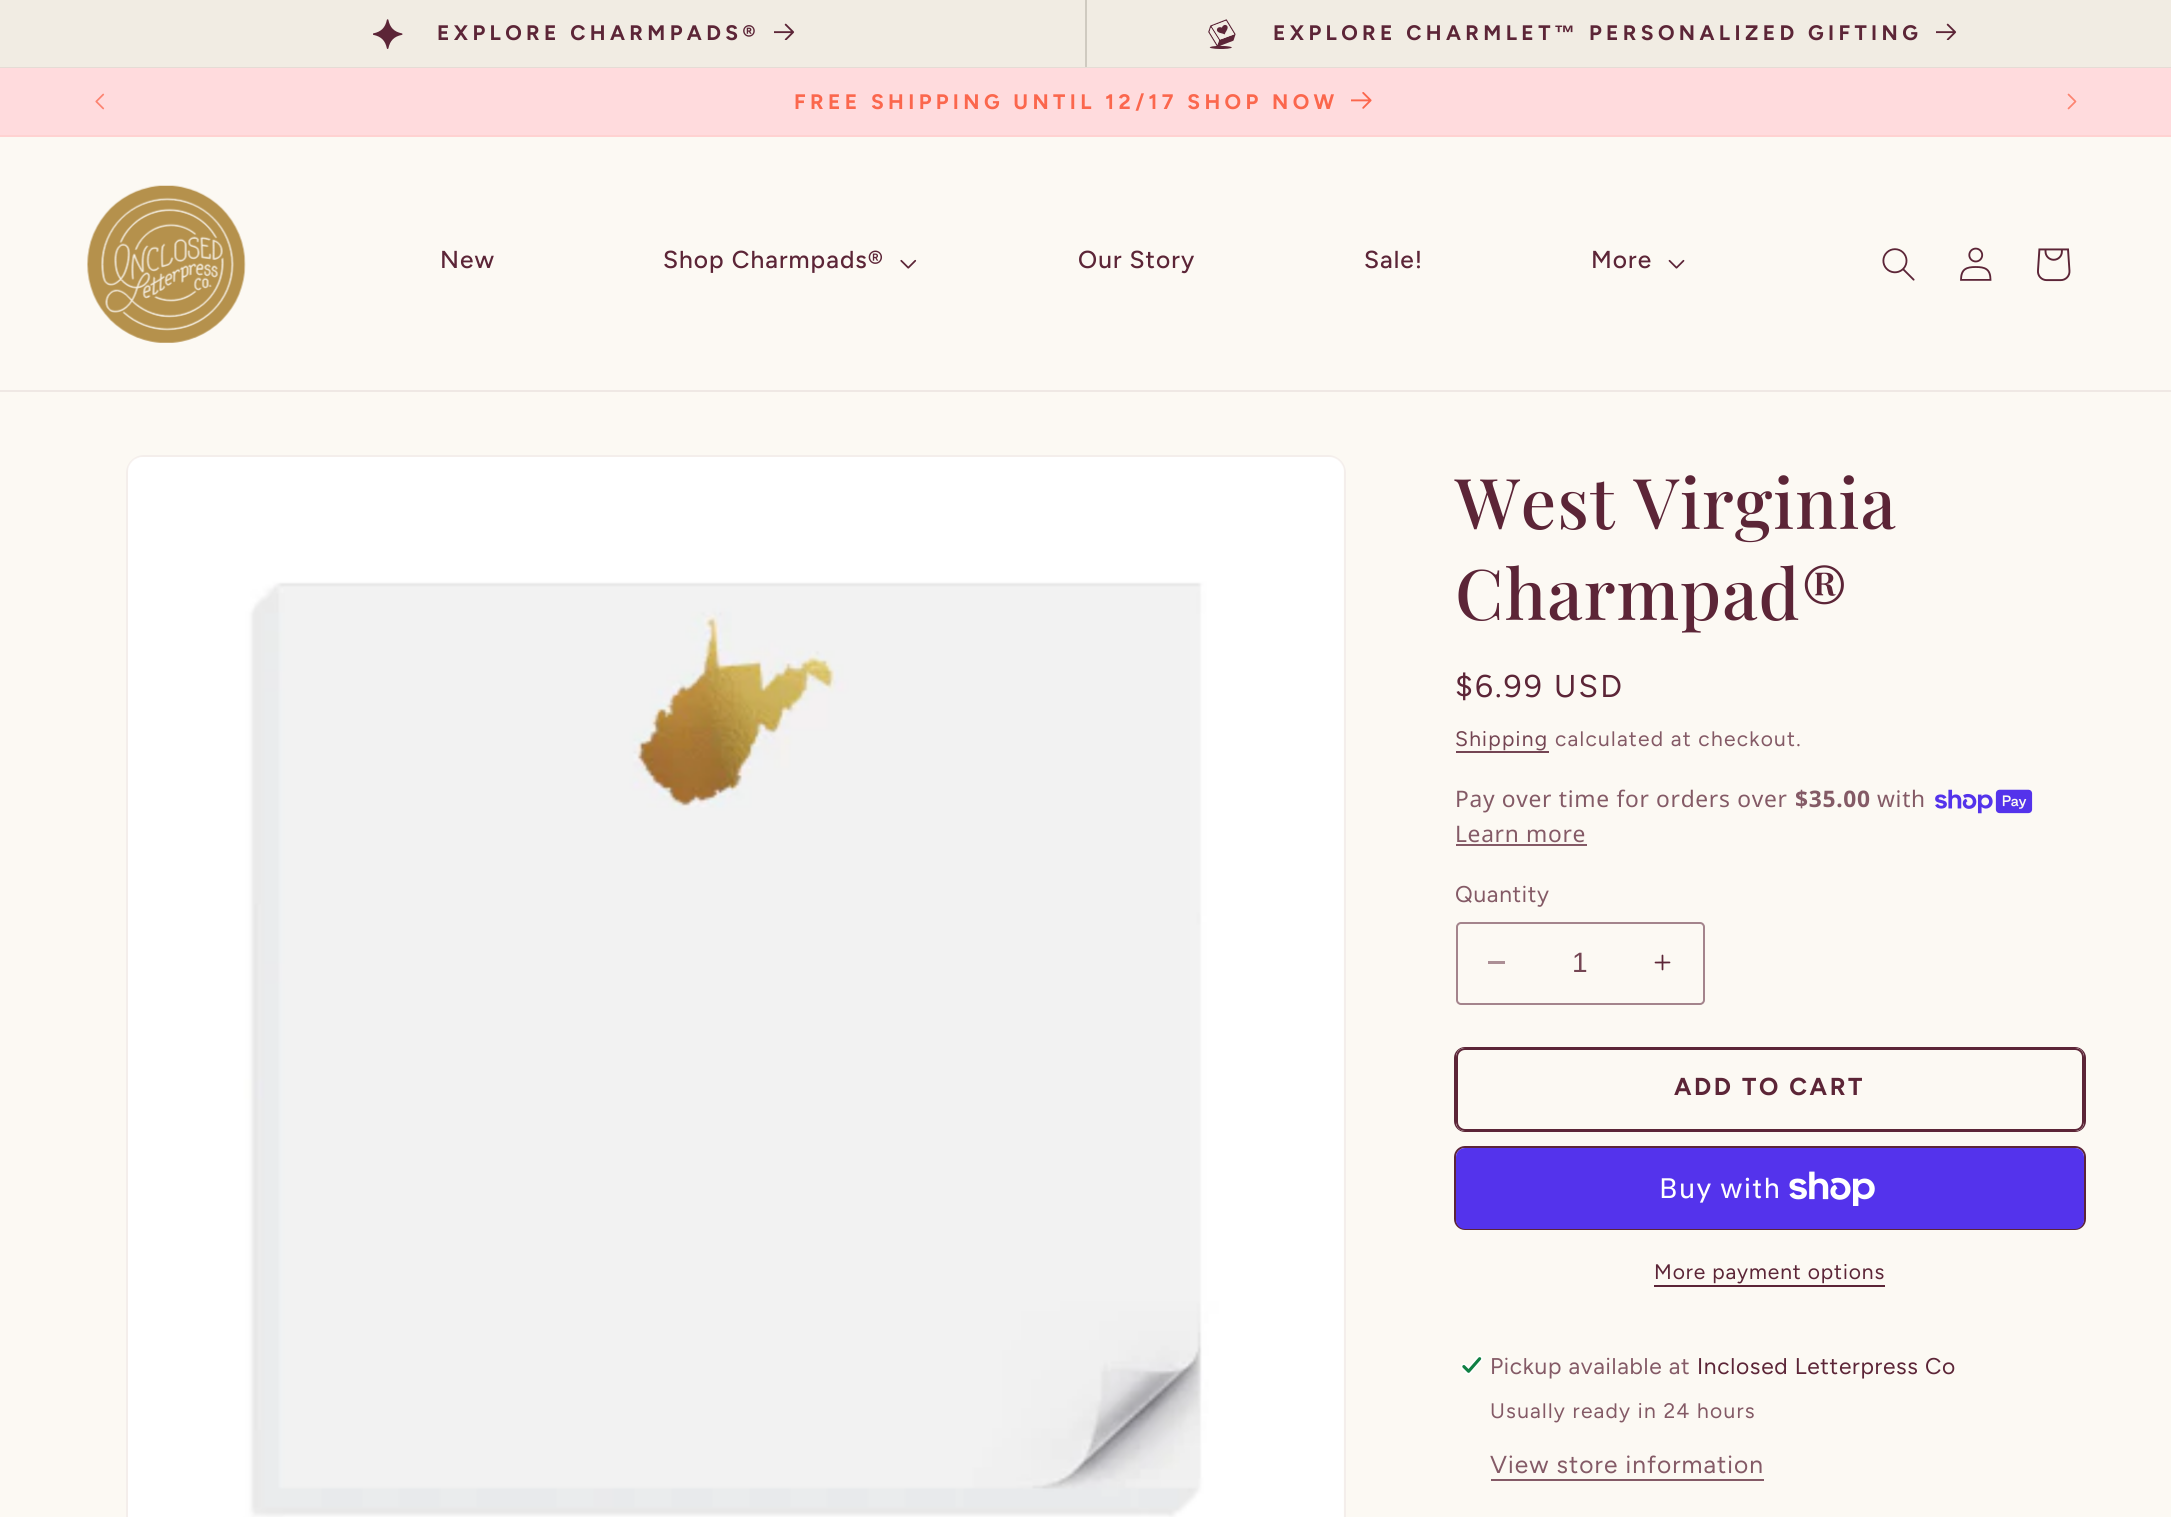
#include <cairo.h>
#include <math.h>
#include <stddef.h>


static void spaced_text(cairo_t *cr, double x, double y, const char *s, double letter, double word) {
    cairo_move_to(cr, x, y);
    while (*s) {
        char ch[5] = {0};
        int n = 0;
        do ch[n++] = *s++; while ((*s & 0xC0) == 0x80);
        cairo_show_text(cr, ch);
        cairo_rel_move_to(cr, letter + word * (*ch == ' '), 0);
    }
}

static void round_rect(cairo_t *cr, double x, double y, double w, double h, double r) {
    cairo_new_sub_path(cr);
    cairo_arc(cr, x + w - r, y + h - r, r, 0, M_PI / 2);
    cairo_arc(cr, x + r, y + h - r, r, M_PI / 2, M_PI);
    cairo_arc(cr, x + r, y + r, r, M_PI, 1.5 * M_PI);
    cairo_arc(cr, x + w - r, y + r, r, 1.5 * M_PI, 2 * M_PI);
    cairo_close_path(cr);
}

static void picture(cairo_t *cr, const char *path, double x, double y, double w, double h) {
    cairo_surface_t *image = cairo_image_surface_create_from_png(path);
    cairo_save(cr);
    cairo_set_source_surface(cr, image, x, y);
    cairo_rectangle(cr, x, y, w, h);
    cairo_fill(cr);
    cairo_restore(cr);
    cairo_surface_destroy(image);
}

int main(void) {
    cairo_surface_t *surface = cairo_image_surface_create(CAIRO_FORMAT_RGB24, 2171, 1517);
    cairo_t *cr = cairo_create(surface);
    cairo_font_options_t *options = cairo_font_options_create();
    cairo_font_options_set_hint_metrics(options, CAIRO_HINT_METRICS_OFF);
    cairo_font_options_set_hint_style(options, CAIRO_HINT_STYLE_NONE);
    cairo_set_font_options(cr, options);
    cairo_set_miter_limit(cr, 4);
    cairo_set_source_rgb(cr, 0.988, 0.976, 0.953);
    cairo_paint(cr);
    cairo_set_source_rgb(cr, 0.945, 0.925, 0.89);
    cairo_rectangle(cr, 0, 0, 2171, 67);
    cairo_fill(cr);
    cairo_set_source_rgb(cr, 0.898, 0.863, 0.835);
    cairo_rectangle(cr, 0, 67, 2171, 1);
    cairo_fill(cr);
    cairo_set_source_rgb(cr, 0.812, 0.792, 0.753);
    cairo_rectangle(cr, 1085, 0, 2, 67);
    cairo_fill(cr);
    picture(cr, "img1.png", 373, 19, 30, 30);
    cairo_select_font_face(cr, "Figtree", CAIRO_FONT_SLANT_NORMAL, CAIRO_FONT_WEIGHT_BOLD);
    cairo_set_font_size(cr, 21);
    cairo_set_source_rgb(cr, 0.361, 0.145, 0.216);
    spaced_text(cr, 437, 40, "EXPLORE CHARMPADS®", 4.4, 0);
    picture(cr, "img2.png", 774, 23, 21, 17);
    picture(cr, "img3.png", 1208, 19, 28, 30);
    spaced_text(cr, 1273, 40, "EXPLORE CHARMLET", 4.4, 0);
    cairo_select_font_face(cr, "Liberation Sans", CAIRO_FONT_SLANT_NORMAL, CAIRO_FONT_WEIGHT_BOLD);
    spaced_text(cr, 1554, 40, "™", 4.4, 0);
    cairo_select_font_face(cr, "Figtree", CAIRO_FONT_SLANT_NORMAL, CAIRO_FONT_WEIGHT_BOLD);
    spaced_text(cr, 1589, 40, "PERSONALIZED GIFTING", 4.4, 0);
    picture(cr, "img2.png", 1936, 23, 21, 17);
    cairo_set_source_rgb(cr, 1, 0.859, 0.867);
    cairo_rectangle(cr, 0, 68, 2171, 67);
    cairo_fill(cr);
    cairo_set_source_rgb(cr, 1, 0.824, 0.82);
    cairo_rectangle(cr, 0, 135, 2171, 2);
    cairo_fill(cr);
    picture(cr, "img4.png", 95, 93, 10, 17);
    cairo_set_source_rgb(cr, 0.984, 0.404, 0.302);
    spaced_text(cr, 794, 109, "FREE SHIPPING UNTIL 12/17 SHOP NOW", 4.4, 0);
    picture(cr, "img5.png", 1351, 92, 21, 17);
    picture(cr, "img6.png", 2067, 93, 10, 17);
    cairo_set_source_rgb(cr, 0.937, 0.91, 0.894);
    cairo_rectangle(cr, 0, 390, 2171, 2);
    cairo_fill(cr);
    picture(cr, "img7.png", 87, 185, 159, 158);
    cairo_select_font_face(cr, "Figtree Medium", CAIRO_FONT_SLANT_NORMAL, CAIRO_FONT_WEIGHT_NORMAL);
    cairo_set_font_size(cr, 24.5);
    cairo_set_source_rgb(cr, 0.361, 0.145, 0.216);
    spaced_text(cr, 440, 268, "New", 1.05, 0);
    spaced_text(cr, 663, 268, "Shop Charmpads®", 1.05, 0);
    picture(cr, "img8.png", 900, 259, 17, 10);
    spaced_text(cr, 1078, 268, "Our Story", 1.05, 0);
    spaced_text(cr, 1364, 268, "Sale!", 1.05, 0);
    spaced_text(cr, 1591, 268, "More", 1.05, 0);
    picture(cr, "img9.png", 1668, 259, 17, 10);
    picture(cr, "img10.png", 1882, 248, 33, 33);
    picture(cr, "img11.png", 1960, 247, 32, 34);
    picture(cr, "img12.png", 2037, 248, 34, 34);
    round_rect(cr, 127, 456, 1218, 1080, 17);
    cairo_set_source_rgb(cr, 0.957, 0.933, 0.918);
    cairo_stroke(cr);
    picture(cr, "img13.png", 128, 457, 1216, 1060);
    cairo_select_font_face(cr, "Playfair Display Medium", CAIRO_FONT_SLANT_NORMAL, CAIRO_FONT_WEIGHT_NORMAL);
    cairo_set_font_size(cr, 70);
    cairo_set_source_rgb(cr, 0.361, 0.145, 0.216);
    spaced_text(cr, 1455, 529, "West Virginia", 1.05, 0);
    spaced_text(cr, 1455, 620, "Charmpad®", 1.05, 0);
    cairo_select_font_face(cr, "Figtree", CAIRO_FONT_SLANT_NORMAL, CAIRO_FONT_WEIGHT_NORMAL);
    cairo_set_font_size(cr, 31.5);
    spaced_text(cr, 1455, 697, "$6.99 USD", 2.25, 0);
    cairo_set_font_size(cr, 21);
    cairo_set_source_rgb(cr, 0.455, 0.271, 0.325);
    spaced_text(cr, 1455, 746, "Shipping", 1.25, 0);
    cairo_rectangle(cr, 1456, 751, 93, 2);
    cairo_fill(cr);
    cairo_set_source_rgb(cr, 0.518, 0.353, 0.4);
    spaced_text(cr, 1555, 746, "calculated at checkout.", 1.25, 0);
    cairo_select_font_face(cr, "Noto Sans", CAIRO_FONT_SLANT_NORMAL, CAIRO_FONT_WEIGHT_NORMAL);
    cairo_set_font_size(cr, 22.75);
    spaced_text(cr, 1455, 807, "Pay over time for orders over", 0.7, 0);
    cairo_select_font_face(cr, "Noto Sans", CAIRO_FONT_SLANT_NORMAL, CAIRO_FONT_WEIGHT_BOLD);
    spaced_text(cr, 1795, 807, "$35.00", 0.7, 0);
    cairo_select_font_face(cr, "Noto Sans", CAIRO_FONT_SLANT_NORMAL, CAIRO_FONT_WEIGHT_NORMAL);
    spaced_text(cr, 1877, 807, "with", 0.7, 0);
    picture(cr, "img14.png", 1935, 789, 98, 25);
    spaced_text(cr, 1455, 842, "Learn more", 0.7, 0);
    cairo_rectangle(cr, 1456, 844, 131, 2);
    cairo_fill(cr);
    cairo_select_font_face(cr, "Figtree", CAIRO_FONT_SLANT_NORMAL, CAIRO_FONT_WEIGHT_NORMAL);
    spaced_text(cr, 1455, 902, "Quantity", 0.7, 0);
    cairo_set_source_rgb(cr, 0.675, 0.561, 0.584);
    cairo_rectangle(cr, 1488, 961, 17, 3);
    cairo_fill(cr);
    picture(cr, "img15.png", 1654, 954, 17, 17);
    round_rect(cr, 1457, 923, 247, 81, 4);
    cairo_set_source_rgb(cr, 0.643, 0.518, 0.549);
    cairo_stroke(cr);
    cairo_select_font_face(cr, "Liberation Sans", CAIRO_FONT_SLANT_NORMAL, CAIRO_FONT_WEIGHT_NORMAL);
    cairo_set_font_size(cr, 28);
    cairo_set_source_rgb(cr, 0.455, 0.271, 0.325);
    cairo_move_to(cr, 1572, 972);
    cairo_show_text(cr, "1");
    round_rect(cr, 1455, 1048, 630, 83, 10);
    cairo_set_source_rgb(cr, 0.361, 0.145, 0.216);
    cairo_stroke(cr);
    cairo_set_source_rgb(cr, 0.988, 0.976, 0.953);
    round_rect(cr, 1456, 1048, 628, 83, 9);
    cairo_fill(cr);
    round_rect(cr, 1457, 1049, 626, 81, 8);
    cairo_stroke(cr);
    round_rect(cr, 1457, 1049, 626, 81, 8);
    cairo_set_source_rgb(cr, 0.361, 0.145, 0.216);
    cairo_stroke(cr);
    cairo_select_font_face(cr, "Figtree", CAIRO_FONT_SLANT_NORMAL, CAIRO_FONT_WEIGHT_BOLD);
    cairo_set_font_size(cr, 24.5);
    spaced_text(cr, 1674, 1095, "ADD TO CART", 2.6, 0);
    round_rect(cr, 1455, 1147, 630, 82, 10);
    cairo_stroke(cr);
    cairo_set_source_rgb(cr, 0.329, 0.2, 0.922);
    round_rect(cr, 1456, 1148, 628, 81, 9);
    cairo_fill(cr);
    cairo_select_font_face(cr, "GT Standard", CAIRO_FONT_SLANT_NORMAL, CAIRO_FONT_WEIGHT_NORMAL);
    cairo_set_font_size(cr, 28);
    cairo_set_source_rgb(cr, 1, 1, 1);
    spaced_text(cr, 1659, 1198, "Buy with", 1.05, 0);
    picture(cr, "img16.png", 1789, 1171, 86, 35);
    cairo_select_font_face(cr, "Figtree", CAIRO_FONT_SLANT_NORMAL, CAIRO_FONT_WEIGHT_NORMAL);
    cairo_set_font_size(cr, 21);
    cairo_set_source_rgb(cr, 0.361, 0.145, 0.216);
    spaced_text(cr, 1654, 1279, "More payment options", 0.9, 0);
    cairo_rectangle(cr, 1654, 1285, 231, 2);
    cairo_fill(cr);
    picture(cr, "img17.png", 1461, 1355, 22, 20);
    cairo_set_font_size(cr, 22.75);
    cairo_set_source_rgb(cr, 0.518, 0.353, 0.4);
    spaced_text(cr, 1490, 1374, "Pickup available at", 0.7, 0);
    cairo_set_source_rgb(cr, 0.361, 0.145, 0.216);
    spaced_text(cr, 1697, 1374, "Inclosed Letterpress Co", 0.7, 0);
    cairo_set_font_size(cr, 21);
    cairo_set_source_rgb(cr, 0.518, 0.353, 0.4);
    spaced_text(cr, 1490, 1418, "Usually ready in 24 hours", 1.25, 0);
    cairo_set_font_size(cr, 24.5);
    spaced_text(cr, 1490, 1473, "View store information", 1.05, 0);
    cairo_rectangle(cr, 1491, 1479, 273, 2);
    cairo_fill(cr);
    cairo_surface_write_to_png(surface, "page.png");
    cairo_font_options_destroy(options);
    cairo_destroy(cr);
    cairo_surface_destroy(surface);
    return 0;
}
